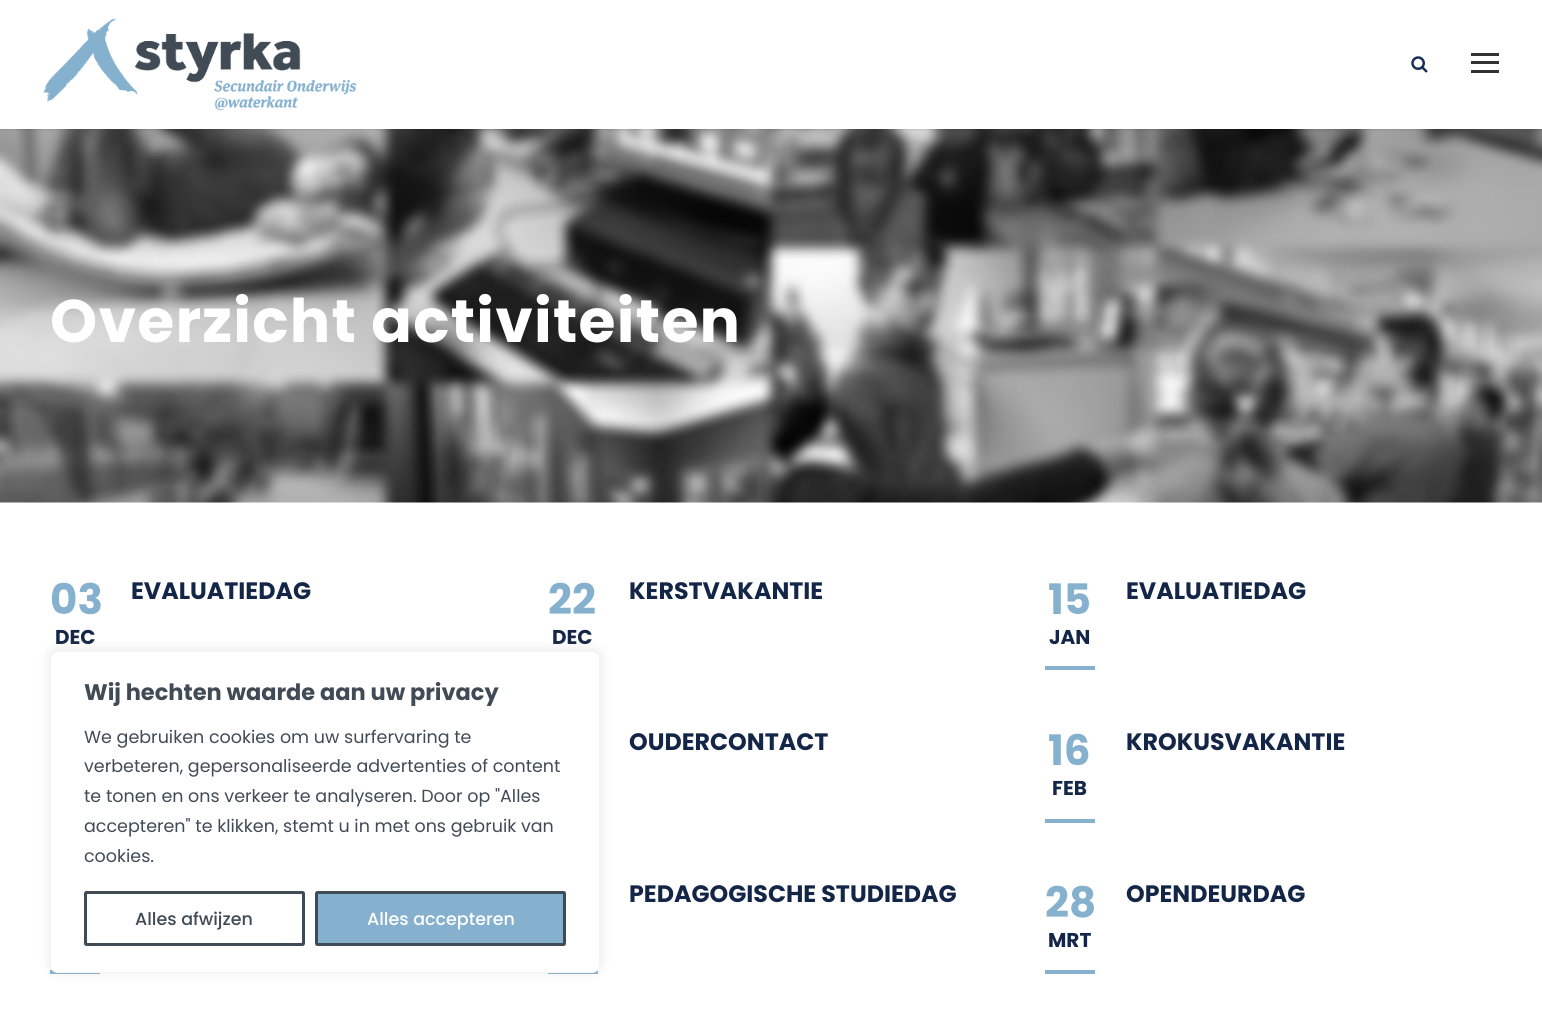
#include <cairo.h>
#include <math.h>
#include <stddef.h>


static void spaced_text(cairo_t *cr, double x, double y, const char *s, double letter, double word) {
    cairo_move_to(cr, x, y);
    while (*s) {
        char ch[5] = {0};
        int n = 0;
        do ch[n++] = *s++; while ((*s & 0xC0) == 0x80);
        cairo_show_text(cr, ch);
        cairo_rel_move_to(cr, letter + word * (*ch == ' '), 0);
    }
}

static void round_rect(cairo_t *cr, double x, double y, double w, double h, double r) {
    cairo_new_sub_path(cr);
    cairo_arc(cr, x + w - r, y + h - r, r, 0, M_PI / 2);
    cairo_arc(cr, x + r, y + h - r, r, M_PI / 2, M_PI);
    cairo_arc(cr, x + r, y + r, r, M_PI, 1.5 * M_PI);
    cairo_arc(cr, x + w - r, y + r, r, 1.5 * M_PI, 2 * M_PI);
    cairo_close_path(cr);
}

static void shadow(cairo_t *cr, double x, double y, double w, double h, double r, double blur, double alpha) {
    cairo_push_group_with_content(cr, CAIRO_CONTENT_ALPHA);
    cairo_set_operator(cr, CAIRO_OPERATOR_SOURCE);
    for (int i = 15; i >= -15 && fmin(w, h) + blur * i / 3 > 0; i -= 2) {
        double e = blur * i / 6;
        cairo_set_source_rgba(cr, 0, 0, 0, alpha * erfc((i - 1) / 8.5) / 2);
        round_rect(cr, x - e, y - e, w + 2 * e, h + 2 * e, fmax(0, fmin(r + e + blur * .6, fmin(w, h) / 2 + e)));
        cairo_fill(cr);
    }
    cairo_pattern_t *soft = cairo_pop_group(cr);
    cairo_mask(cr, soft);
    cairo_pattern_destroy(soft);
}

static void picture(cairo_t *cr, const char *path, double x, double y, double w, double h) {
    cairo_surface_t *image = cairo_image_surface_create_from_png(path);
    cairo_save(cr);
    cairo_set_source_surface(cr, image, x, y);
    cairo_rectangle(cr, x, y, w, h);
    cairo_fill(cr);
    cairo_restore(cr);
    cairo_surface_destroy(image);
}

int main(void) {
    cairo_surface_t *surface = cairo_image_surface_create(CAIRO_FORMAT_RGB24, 1542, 1022);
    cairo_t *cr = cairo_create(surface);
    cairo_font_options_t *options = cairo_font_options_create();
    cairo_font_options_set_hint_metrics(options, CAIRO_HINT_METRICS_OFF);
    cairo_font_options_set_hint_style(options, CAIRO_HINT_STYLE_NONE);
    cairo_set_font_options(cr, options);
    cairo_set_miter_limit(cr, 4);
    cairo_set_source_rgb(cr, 1, 1, 1);
    cairo_paint(cr);
    picture(cr, "img3.png", 0, 129, 1542, 374);
    cairo_set_source_rgb(cr, 0, 0, 0);
    shadow(cr, 0, 1, 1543, 129, 0, 1, 0.1);
    cairo_set_source_rgb(cr, 1, 1, 1);
    cairo_rectangle(cr, 0, 0, 1542, 129);
    cairo_fill(cr);
    picture(cr, "img1.png", 43, 18, 314, 92);
    picture(cr, "img2.png", 1411, 56, 17, 17);
    cairo_set_source_rgb(cr, 0.2, 0.2, 0.2);
    cairo_rectangle(cr, 1471, 53, 28, 3);
    cairo_fill(cr);
    cairo_rectangle(cr, 1471, 61, 28, 3);
    cairo_fill(cr);
    cairo_rectangle(cr, 1471, 70, 28, 3);
    cairo_fill(cr);
    cairo_select_font_face(cr, "Poppins", CAIRO_FONT_SLANT_NORMAL, CAIRO_FONT_WEIGHT_BOLD);
    cairo_set_font_size(cr, 60);
    cairo_set_source_rgb(cr, 1, 1, 1);
    spaced_text(cr, 50, 342, "Overzicht activiteiten", 1.25, 0);
    cairo_set_font_size(cr, 42);
    cairo_set_source_rgb(cr, 0.522, 0.694, 0.812);
    cairo_move_to(cr, 50, 614);
    cairo_show_text(cr, "03");
    cairo_set_font_size(cr, 20);
    cairo_set_source_rgb(cr, 0.082, 0.149, 0.278);
    cairo_move_to(cr, 55, 644);
    cairo_show_text(cr, "DEC");
    cairo_set_font_size(cr, 23.75);
    cairo_move_to(cr, 131, 599);
    cairo_show_text(cr, "EVALUATIEDAG");
    cairo_set_font_size(cr, 42);
    cairo_set_source_rgb(cr, 0.522, 0.694, 0.812);
    cairo_move_to(cr, 548, 614);
    cairo_show_text(cr, "22");
    cairo_set_font_size(cr, 20);
    cairo_set_source_rgb(cr, 0.082, 0.149, 0.278);
    cairo_move_to(cr, 552, 644);
    cairo_show_text(cr, "DEC");
    cairo_set_font_size(cr, 23.75);
    cairo_move_to(cr, 629, 599);
    cairo_show_text(cr, "KERSTVAKANTIE");
    cairo_set_source_rgb(cr, 0.522, 0.694, 0.812);
    cairo_rectangle(cr, 1045, 666, 50, 4);
    cairo_fill(cr);
    cairo_set_font_size(cr, 42);
    cairo_move_to(cr, 1048, 614);
    cairo_show_text(cr, "15");
    cairo_set_font_size(cr, 20);
    cairo_set_source_rgb(cr, 0.082, 0.149, 0.278);
    cairo_move_to(cr, 1049, 644);
    cairo_show_text(cr, "JAN");
    cairo_set_font_size(cr, 23.75);
    cairo_move_to(cr, 1126, 599);
    cairo_show_text(cr, "EVALUATIEDAG");
    cairo_move_to(cr, 629, 750);
    cairo_show_text(cr, "OUDERCONTACT");
    cairo_set_source_rgb(cr, 0.522, 0.694, 0.812);
    cairo_rectangle(cr, 1045, 819, 50, 4);
    cairo_fill(cr);
    cairo_set_font_size(cr, 42);
    cairo_move_to(cr, 1048, 765);
    cairo_show_text(cr, "16");
    cairo_set_font_size(cr, 20);
    cairo_set_source_rgb(cr, 0.082, 0.149, 0.278);
    cairo_move_to(cr, 1052, 795);
    cairo_show_text(cr, "FEB");
    cairo_set_font_size(cr, 23.75);
    cairo_move_to(cr, 1126, 750);
    cairo_show_text(cr, "KROKUSVAKANTIE");
    cairo_move_to(cr, 629, 902);
    cairo_show_text(cr, "PEDAGOGISCHE STUDIEDAG");
    cairo_set_source_rgb(cr, 0.522, 0.694, 0.812);
    cairo_rectangle(cr, 548, 970, 50, 4);
    cairo_fill(cr);
    cairo_rectangle(cr, 1045, 970, 50, 4);
    cairo_fill(cr);
    cairo_set_font_size(cr, 42);
    cairo_move_to(cr, 1045, 917);
    cairo_show_text(cr, "28");
    cairo_set_font_size(cr, 20);
    cairo_set_source_rgb(cr, 0.082, 0.149, 0.278);
    cairo_move_to(cr, 1048, 947);
    cairo_show_text(cr, "MRT");
    cairo_set_font_size(cr, 23.75);
    cairo_move_to(cr, 1126, 902);
    cairo_show_text(cr, "OPENDEURDAG");
    cairo_set_source_rgb(cr, 0.522, 0.694, 0.812);
    cairo_rectangle(cr, 50, 970, 50, 4);
    cairo_fill(cr);
    cairo_set_source_rgb(cr, 0.675, 0.671, 0.671);
    shadow(cr, 50, 650, 550, 321, 8, 6, 0.3);
    cairo_set_source_rgb(cr, 1, 1, 1);
    round_rect(cr, 50.5, 651.5, 549, 321, 7.5);
    cairo_fill_preserve(cr);
    cairo_set_source_rgb(cr, 0.957, 0.957, 0.957);
    cairo_set_line_width(cr, 1);
    cairo_stroke(cr);
    cairo_set_font_size(cr, 22.5);
    cairo_set_source_rgb(cr, 0.255, 0.294, 0.333);
    cairo_move_to(cr, 84, 700);
    cairo_show_text(cr, "Wij hechten waarde aan uw privacy");
    cairo_select_font_face(cr, "Poppins", CAIRO_FONT_SLANT_NORMAL, CAIRO_FONT_WEIGHT_NORMAL);
    cairo_set_font_size(cr, 17.5);
    cairo_move_to(cr, 84, 743);
    cairo_show_text(cr, "We gebruiken cookies om uw surfervaring te");
    cairo_move_to(cr, 84, 772);
    cairo_show_text(cr, "verbeteren, gepersonaliseerde advertenties of content");
    cairo_move_to(cr, 84, 802);
    cairo_show_text(cr, "te tonen en ons verkeer te analyseren. Door op \"Alles");
    cairo_move_to(cr, 84, 832);
    cairo_show_text(cr, "accepteren\" te klikken, stemt u in met ons gebruik van");
    cairo_move_to(cr, 84, 862);
    cairo_show_text(cr, "cookies.");
    round_rect(cr, 85.5, 892.5, 218, 52, 1);
    cairo_set_line_width(cr, 3);
    cairo_stroke(cr);
    cairo_select_font_face(cr, "Poppins Medium", CAIRO_FONT_SLANT_NORMAL, CAIRO_FONT_WEIGHT_NORMAL);
    cairo_move_to(cr, 135, 925);
    cairo_show_text(cr, "Alles afwijzen");
    cairo_set_source_rgb(cr, 0.522, 0.694, 0.812);
    round_rect(cr, 316.5, 892.5, 248, 52, 1);
    cairo_fill_preserve(cr);
    cairo_set_source_rgb(cr, 0.255, 0.294, 0.333);
    cairo_stroke(cr);
    cairo_set_source_rgb(cr, 1, 1, 1);
    cairo_move_to(cr, 367, 925);
    cairo_show_text(cr, "Alles accepteren");
    cairo_surface_write_to_png(surface, "page.png");
    cairo_font_options_destroy(options);
    cairo_destroy(cr);
    cairo_surface_destroy(surface);
    return 0;
}
